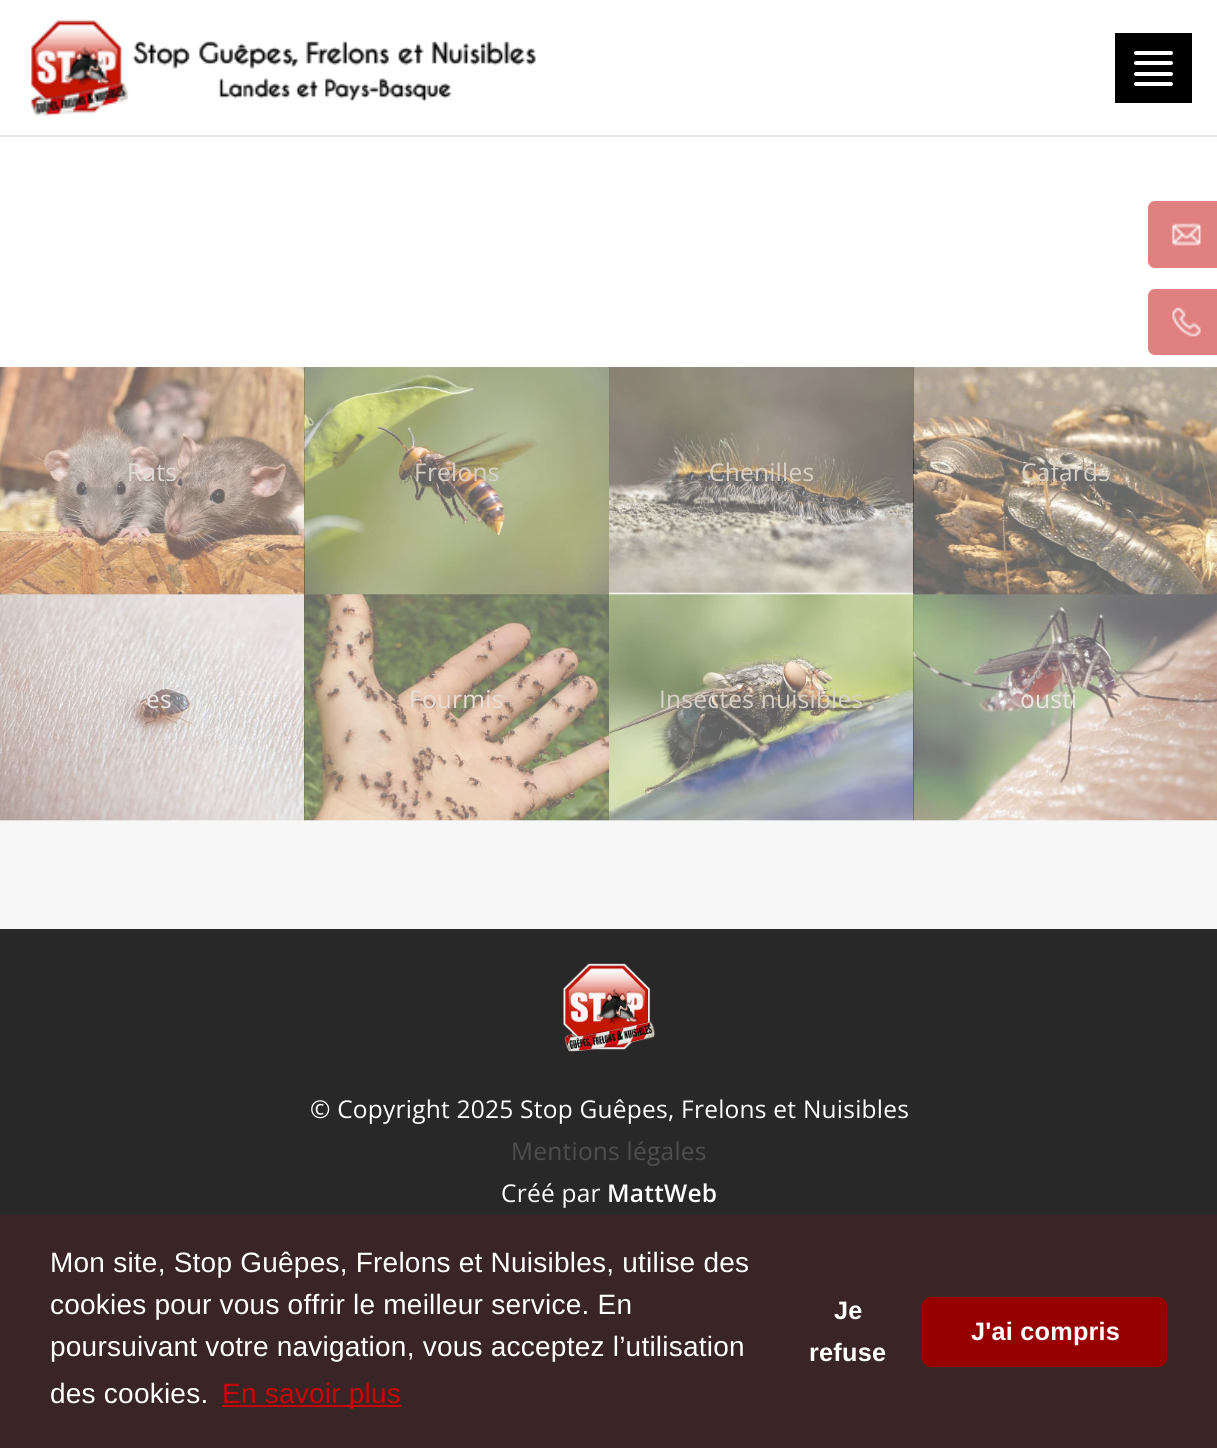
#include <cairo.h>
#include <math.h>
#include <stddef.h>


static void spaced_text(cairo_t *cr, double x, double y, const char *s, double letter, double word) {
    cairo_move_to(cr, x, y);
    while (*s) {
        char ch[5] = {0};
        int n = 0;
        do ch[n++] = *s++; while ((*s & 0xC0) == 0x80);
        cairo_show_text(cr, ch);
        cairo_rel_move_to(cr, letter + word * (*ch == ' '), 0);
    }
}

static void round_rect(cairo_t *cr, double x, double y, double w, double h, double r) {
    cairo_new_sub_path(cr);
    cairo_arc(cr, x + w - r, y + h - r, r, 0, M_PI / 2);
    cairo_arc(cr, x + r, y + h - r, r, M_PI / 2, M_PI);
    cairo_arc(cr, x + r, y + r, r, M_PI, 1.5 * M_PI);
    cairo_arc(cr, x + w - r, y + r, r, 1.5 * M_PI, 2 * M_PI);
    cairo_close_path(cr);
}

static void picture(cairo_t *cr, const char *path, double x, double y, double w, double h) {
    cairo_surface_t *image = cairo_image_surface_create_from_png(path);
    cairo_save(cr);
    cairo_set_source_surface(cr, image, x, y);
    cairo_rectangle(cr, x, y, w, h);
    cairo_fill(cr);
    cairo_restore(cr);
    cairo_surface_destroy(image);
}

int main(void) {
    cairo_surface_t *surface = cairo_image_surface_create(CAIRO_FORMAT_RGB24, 1217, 1448);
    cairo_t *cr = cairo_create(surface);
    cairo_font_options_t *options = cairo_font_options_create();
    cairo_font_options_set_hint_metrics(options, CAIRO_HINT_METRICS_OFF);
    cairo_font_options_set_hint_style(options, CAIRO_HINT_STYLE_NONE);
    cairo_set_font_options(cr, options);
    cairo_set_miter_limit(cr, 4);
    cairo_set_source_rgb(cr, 0.965, 0.965, 0.965);
    cairo_paint(cr);
    cairo_set_source_rgb(cr, 1, 1, 1);
    cairo_rectangle(cr, 0, 0, 1217, 368);
    cairo_fill(cr);
    cairo_set_source_rgb(cr, 0.878, 0.502, 0.502);
    round_rect(cr, 1148, 201, 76, 67, 7);
    cairo_fill(cr);
    picture(cr, "img1.png", 1172, 223, 30, 23);
    round_rect(cr, 1148, 289, 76, 66, 7);
    cairo_fill(cr);
    picture(cr, "img2.png", 1172, 307, 29, 30);
    cairo_set_source_rgb(cr, 0.902, 0.902, 0.902);
    cairo_rectangle(cr, 0, 135, 1217, 2);
    cairo_fill(cr);
    picture(cr, "img3.png", 30, 19, 506, 97);
    cairo_set_source_rgb(cr, 0, 0, 0);
    cairo_rectangle(cr, 1115, 33, 77, 70);
    cairo_fill(cr);
    cairo_set_source_rgb(cr, 1, 1, 1);
    round_rect(cr, 1134, 51, 39, 4, 2);
    cairo_fill(cr);
    round_rect(cr, 1134, 61, 39, 4, 2);
    cairo_fill(cr);
    round_rect(cr, 1134, 72, 39, 4, 2);
    cairo_fill(cr);
    round_rect(cr, 1134, 82, 39, 4, 2);
    cairo_fill(cr);
    picture(cr, "img4.png", 0, 367, 305, 228);
    cairo_select_font_face(cr, "Open Sans", CAIRO_FONT_SLANT_NORMAL, CAIRO_FONT_WEIGHT_NORMAL);
    cairo_set_font_size(cr, 24.5);
    cairo_set_source_rgb(cr, 0.886, 0.863, 0.851);
    spaced_text(cr, 127, 481, "Rats", 0.23, 0);
    picture(cr, "img5.png", 304, 367, 305, 228);
    cairo_set_source_rgb(cr, 0.843, 0.82, 0.78);
    spaced_text(cr, 414, 481, "Frelons", 0.23, 0);
    picture(cr, "img6.png", 609, 367, 305, 226);
    spaced_text(cr, 709, 481, "Chenilles", 0.23, 0);
    picture(cr, "img7.png", 913, 367, 304, 228);
    spaced_text(cr, 1021, 481, "Cafards", 0.23, 0);
    picture(cr, "img8.png", 0, 594, 305, 227);
    cairo_set_source_rgb(cr, 0.922, 0.91, 0.906);
    spaced_text(cr, 146, 708, "es", 0.23, 0);
    picture(cr, "img9.png", 304, 594, 305, 227);
    cairo_set_source_rgb(cr, 0.914, 0.871, 0.835);
    spaced_text(cr, 409, 708, "Fourmis", 0.23, 0);
    picture(cr, "img10.png", 609, 594, 305, 227);
    cairo_set_source_rgb(cr, 0.843, 0.82, 0.78);
    spaced_text(cr, 659, 708, "Insectes nuisibles", 0.23, 0);
    picture(cr, "img11.png", 913, 594, 304, 227);
    cairo_set_source_rgb(cr, 0.914, 0.902, 0.875);
    spaced_text(cr, 1020, 708, "ousti", 0.23, 0);
    cairo_set_source_rgb(cr, 0.157, 0.157, 0.157);
    cairo_rectangle(cr, 0, 929, 1217, 286);
    cairo_fill(cr);
    picture(cr, "img12.png", 563, 963, 92, 89);
    cairo_set_source_rgb(cr, 1, 1, 1);
    spaced_text(cr, 310, 1118, "© Copyright 2025 Stop Guêpes, Frelons et Nuisibles", 0.23, 0);
    cairo_set_source_rgb(cr, 0.306, 0.306, 0.306);
    spaced_text(cr, 511, 1160, "Mentions légales", 0.23, 0);
    cairo_set_source_rgb(cr, 1, 1, 1);
    spaced_text(cr, 501, 1202, "Créé par", 0.23, 0);
    cairo_select_font_face(cr, "Open Sans SemiBold", CAIRO_FONT_SLANT_NORMAL, CAIRO_FONT_WEIGHT_NORMAL);
    spaced_text(cr, 607, 1202, "MattWeb", 0.23, 0);
    cairo_set_source_rgb(cr, 0.224, 0.145, 0.145);
    cairo_rectangle(cr, 0, 1215, 1217, 233);
    cairo_fill(cr);
    cairo_select_font_face(cr, "Liberation Sans", CAIRO_FONT_SLANT_NORMAL, CAIRO_FONT_WEIGHT_NORMAL);
    cairo_set_font_size(cr, 28);
    cairo_set_source_rgb(cr, 1, 1, 1);
    spaced_text(cr, 50, 1272, "Mon site, Stop Guêpes, Frelons et Nuisibles, utilise des", 0.23, 0);
    spaced_text(cr, 50, 1314, "cookies pour vous offrir le meilleur service. En", 0.23, 0);
    spaced_text(cr, 50, 1356, "poursuivant votre navigation, vous acceptez l’utilisation", 0.23, 0);
    spaced_text(cr, 50, 1403, "des cookies.", 0.23, 0);
    cairo_set_source_rgb(cr, 0.78, 0.027, 0.027);
    cairo_rectangle(cr, 222, 1405, 179, 2);
    cairo_fill(cr);
    spaced_text(cr, 222, 1403, "En savoir plus", 0.23, 0);
    cairo_select_font_face(cr, "Liberation Sans", CAIRO_FONT_SLANT_NORMAL, CAIRO_FONT_WEIGHT_BOLD);
    cairo_set_font_size(cr, 25.25);
    cairo_set_source_rgb(cr, 1, 1, 1);
    spaced_text(cr, 834, 1319, "Je", 0.23, 0);
    spaced_text(cr, 809, 1361, "refuse", 0.23, 0);
    cairo_set_source_rgb(cr, 0.596, 0, 0);
    round_rect(cr, 922, 1297, 245, 70, 9);
    cairo_fill(cr);
    cairo_set_source_rgb(cr, 1, 1, 1);
    spaced_text(cr, 971, 1340, "J'ai compris", 0.23, 0);
    cairo_surface_write_to_png(surface, "page.png");
    cairo_font_options_destroy(options);
    cairo_destroy(cr);
    cairo_surface_destroy(surface);
    return 0;
}
